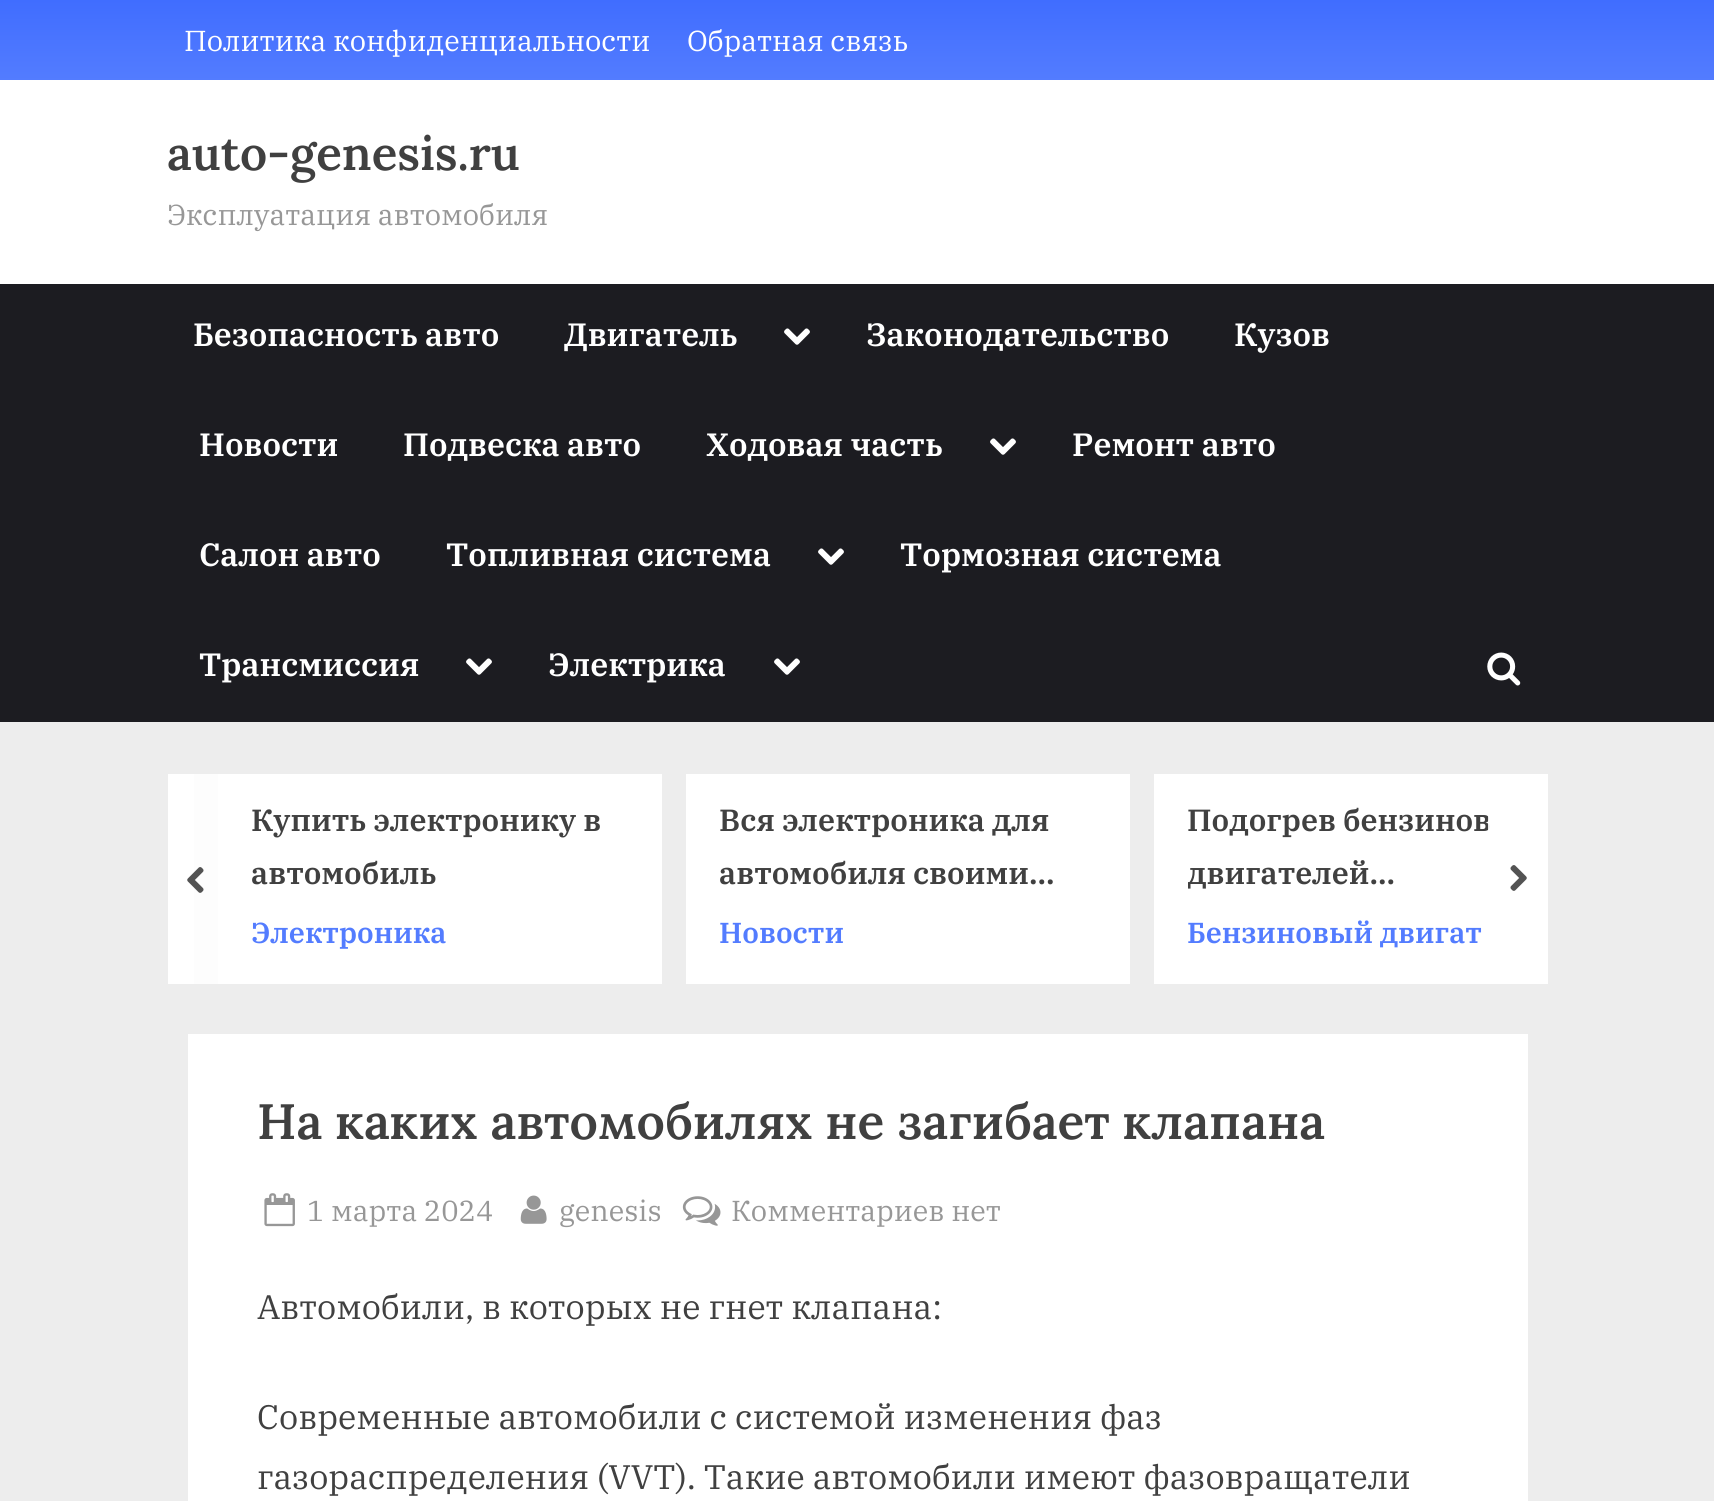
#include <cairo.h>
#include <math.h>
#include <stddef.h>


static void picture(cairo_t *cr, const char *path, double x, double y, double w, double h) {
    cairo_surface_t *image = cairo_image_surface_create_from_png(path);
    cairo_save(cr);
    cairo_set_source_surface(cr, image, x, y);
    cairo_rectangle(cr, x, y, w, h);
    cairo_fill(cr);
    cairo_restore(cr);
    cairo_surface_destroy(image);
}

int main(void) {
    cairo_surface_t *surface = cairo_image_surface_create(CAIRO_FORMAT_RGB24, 1714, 1501);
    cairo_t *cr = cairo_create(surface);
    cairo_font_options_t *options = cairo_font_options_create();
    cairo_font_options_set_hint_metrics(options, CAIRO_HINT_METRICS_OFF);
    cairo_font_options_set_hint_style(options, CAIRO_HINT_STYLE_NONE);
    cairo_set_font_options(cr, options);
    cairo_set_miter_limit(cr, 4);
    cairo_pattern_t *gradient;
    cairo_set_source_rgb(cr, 0.929, 0.929, 0.929);
    cairo_paint(cr);
    cairo_set_source_rgb(cr, 0.992, 0.992, 0.992);
    cairo_rectangle(cr, 194, 774, 24, 210);
    cairo_fill(cr);
    gradient = cairo_pattern_create_linear(857, 80, 857, 0);
    cairo_pattern_add_color_stop_rgba(gradient, 0, 0.325, 0.486, 1, 1);
    cairo_pattern_add_color_stop_rgba(gradient, 1, 0.251, 0.427, 1, 1);
    cairo_set_source(cr, gradient);
    cairo_pattern_destroy(gradient);
    cairo_rectangle(cr, 0, 0, 1714, 80);
    cairo_fill(cr);
    cairo_select_font_face(cr, "IBM Plex Serif", CAIRO_FONT_SLANT_NORMAL, CAIRO_FONT_WEIGHT_NORMAL);
    cairo_set_font_size(cr, 28.9);
    cairo_set_source_rgb(cr, 1, 1, 1);
    cairo_move_to(cr, 184, 51);
    cairo_show_text(cr, "Политика конфиденциальности");
    cairo_move_to(cr, 687, 51);
    cairo_show_text(cr, "Обратная связь");
    cairo_rectangle(cr, 0, 80, 1714, 204);
    cairo_fill(cr);
    cairo_select_font_face(cr, "Lora SemiBold", CAIRO_FONT_SLANT_NORMAL, CAIRO_FONT_WEIGHT_NORMAL);
    cairo_set_font_size(cr, 47.5);
    cairo_set_source_rgb(cr, 0.251, 0.251, 0.251);
    cairo_move_to(cr, 167, 170);
    cairo_show_text(cr, "auto-genesis.ru");
    cairo_select_font_face(cr, "IBM Plex Serif", CAIRO_FONT_SLANT_NORMAL, CAIRO_FONT_WEIGHT_NORMAL);
    cairo_set_font_size(cr, 28.9);
    cairo_set_source_rgb(cr, 0.592, 0.592, 0.592);
    cairo_move_to(cr, 167, 225);
    cairo_show_text(cr, "Эксплуатация автомобиля");
    cairo_set_source_rgb(cr, 0.11, 0.11, 0.129);
    cairo_rectangle(cr, 0, 284, 1714, 438);
    cairo_fill(cr);
    cairo_select_font_face(cr, "IBM Plex Serif SemiBold", CAIRO_FONT_SLANT_NORMAL, CAIRO_FONT_WEIGHT_NORMAL);
    cairo_set_font_size(cr, 32.25);
    cairo_set_source_rgb(cr, 1, 1, 1);
    cairo_move_to(cr, 193, 346);
    cairo_show_text(cr, "Безопасность авто");
    cairo_move_to(cr, 564, 346);
    cairo_show_text(cr, "Двигатель");
    picture(cr, "img1.png", 784, 328, 26, 17);
    cairo_move_to(cr, 866, 346);
    cairo_show_text(cr, "Законодательство");
    cairo_move_to(cr, 1234, 346);
    cairo_show_text(cr, "Кузов");
    cairo_move_to(cr, 199, 456);
    cairo_show_text(cr, "Новости");
    cairo_move_to(cr, 403, 456);
    cairo_show_text(cr, "Подвеска авто");
    cairo_move_to(cr, 706, 456);
    cairo_show_text(cr, "Ходовая часть");
    picture(cr, "img1.png", 990, 438, 26, 17);
    cairo_move_to(cr, 1072, 456);
    cairo_show_text(cr, "Ремонт авто");
    cairo_move_to(cr, 199, 566);
    cairo_show_text(cr, "Салон авто");
    cairo_move_to(cr, 446, 566);
    cairo_show_text(cr, "Топливная система");
    picture(cr, "img1.png", 818, 548, 26, 17);
    cairo_move_to(cr, 900, 566);
    cairo_show_text(cr, "Тормозная система");
    cairo_move_to(cr, 199, 676);
    cairo_show_text(cr, "Трансмиссия");
    picture(cr, "img1.png", 466, 658, 26, 17);
    cairo_move_to(cr, 548, 676);
    cairo_show_text(cr, "Электрика");
    picture(cr, "img1.png", 774, 658, 26, 17);
    picture(cr, "img2.png", 1487, 652, 34, 34);
    cairo_rectangle(cr, 168, 774, 26, 210);
    cairo_fill(cr);
    cairo_rectangle(cr, 218, 774, 444, 210);
    cairo_fill(cr);
    cairo_set_font_size(cr, 30.6);
    cairo_set_source_rgb(cr, 0.251, 0.251, 0.251);
    cairo_move_to(cr, 251, 831);
    cairo_show_text(cr, "Купить электронику в");
    cairo_move_to(cr, 251, 884);
    cairo_show_text(cr, "автомобиль");
    cairo_set_font_size(cr, 28.9);
    cairo_set_source_rgb(cr, 0.325, 0.486, 1);
    cairo_move_to(cr, 251, 943);
    cairo_show_text(cr, "Электроника");
    cairo_set_source_rgb(cr, 1, 1, 1);
    cairo_rectangle(cr, 686, 774, 444, 210);
    cairo_fill(cr);
    cairo_set_font_size(cr, 30.6);
    cairo_set_source_rgb(cr, 0.251, 0.251, 0.251);
    cairo_move_to(cr, 719, 831);
    cairo_show_text(cr, "Вся электроника для");
    cairo_move_to(cr, 719, 884);
    cairo_show_text(cr, "автомобиля своими…");
    cairo_set_font_size(cr, 28.9);
    cairo_set_source_rgb(cr, 0.325, 0.486, 1);
    cairo_move_to(cr, 719, 943);
    cairo_show_text(cr, "Новости");
    cairo_set_source_rgb(cr, 1, 1, 1);
    cairo_rectangle(cr, 1154, 774, 394, 210);
    cairo_fill(cr);
    cairo_set_font_size(cr, 30.6);
    cairo_set_source_rgb(cr, 0.251, 0.251, 0.251);
    cairo_move_to(cr, 1187, 831);
    cairo_show_text(cr, "Подогрев бензинов");
    cairo_save(cr);
    cairo_rectangle(cr, 1188, 792, 358, 108);
    cairo_clip(cr);
    cairo_move_to(cr, 1187, 884);
    cairo_show_text(cr, "двигателей…");
    cairo_restore(cr);
    cairo_set_font_size(cr, 28.9);
    cairo_set_source_rgb(cr, 0.325, 0.486, 1);
    cairo_move_to(cr, 1187, 943);
    cairo_show_text(cr, "Бензиновый двигат");
    picture(cr, "img3.png", 187, 867, 17, 26);
    cairo_set_source_rgba(cr, 1, 1, 1, 0.9);
    cairo_rectangle(cr, 1488, 816, 2, 14);
    cairo_fill(cr);
    picture(cr, "img4.png", 1510, 865, 17, 26);
    cairo_set_source_rgb(cr, 1, 1, 1);
    cairo_rectangle(cr, 188, 1034, 1340, 467);
    cairo_fill(cr);
    cairo_select_font_face(cr, "Lora SemiBold", CAIRO_FONT_SLANT_NORMAL, CAIRO_FONT_WEIGHT_NORMAL);
    cairo_set_font_size(cr, 49.6);
    cairo_set_source_rgb(cr, 0.251, 0.251, 0.251);
    cairo_move_to(cr, 257, 1139);
    cairo_show_text(cr, "На каких автомобилях не загибает клапана");
    picture(cr, "img5.png", 264, 1193, 31, 34);
    cairo_select_font_face(cr, "IBM Plex Serif", CAIRO_FONT_SLANT_NORMAL, CAIRO_FONT_WEIGHT_NORMAL);
    cairo_set_font_size(cr, 28.9);
    cairo_set_source_rgb(cr, 0.592, 0.592, 0.592);
    cairo_move_to(cr, 307, 1221);
    cairo_show_text(cr, "1 марта 2024");
    picture(cr, "img6.png", 520, 1195, 27, 29);
    cairo_move_to(cr, 559, 1221);
    cairo_show_text(cr, "genesis");
    picture(cr, "img7.png", 682, 1196, 39, 30);
    cairo_move_to(cr, 731, 1221);
    cairo_show_text(cr, "Комментариев нет");
    cairo_set_font_size(cr, 34);
    cairo_set_source_rgb(cr, 0.251, 0.251, 0.251);
    cairo_move_to(cr, 257, 1319);
    cairo_show_text(cr, "Автомобили, в которых не гнет клапана:");
    cairo_move_to(cr, 257, 1429);
    cairo_show_text(cr, "Современные автомобили с системой изменения фаз");
    cairo_move_to(cr, 257, 1489);
    cairo_show_text(cr, "газораспределения (VVT). Такие автомобили имеют фазовращатели");
    cairo_surface_write_to_png(surface, "page.png");
    cairo_font_options_destroy(options);
    cairo_destroy(cr);
    cairo_surface_destroy(surface);
    return 0;
}
